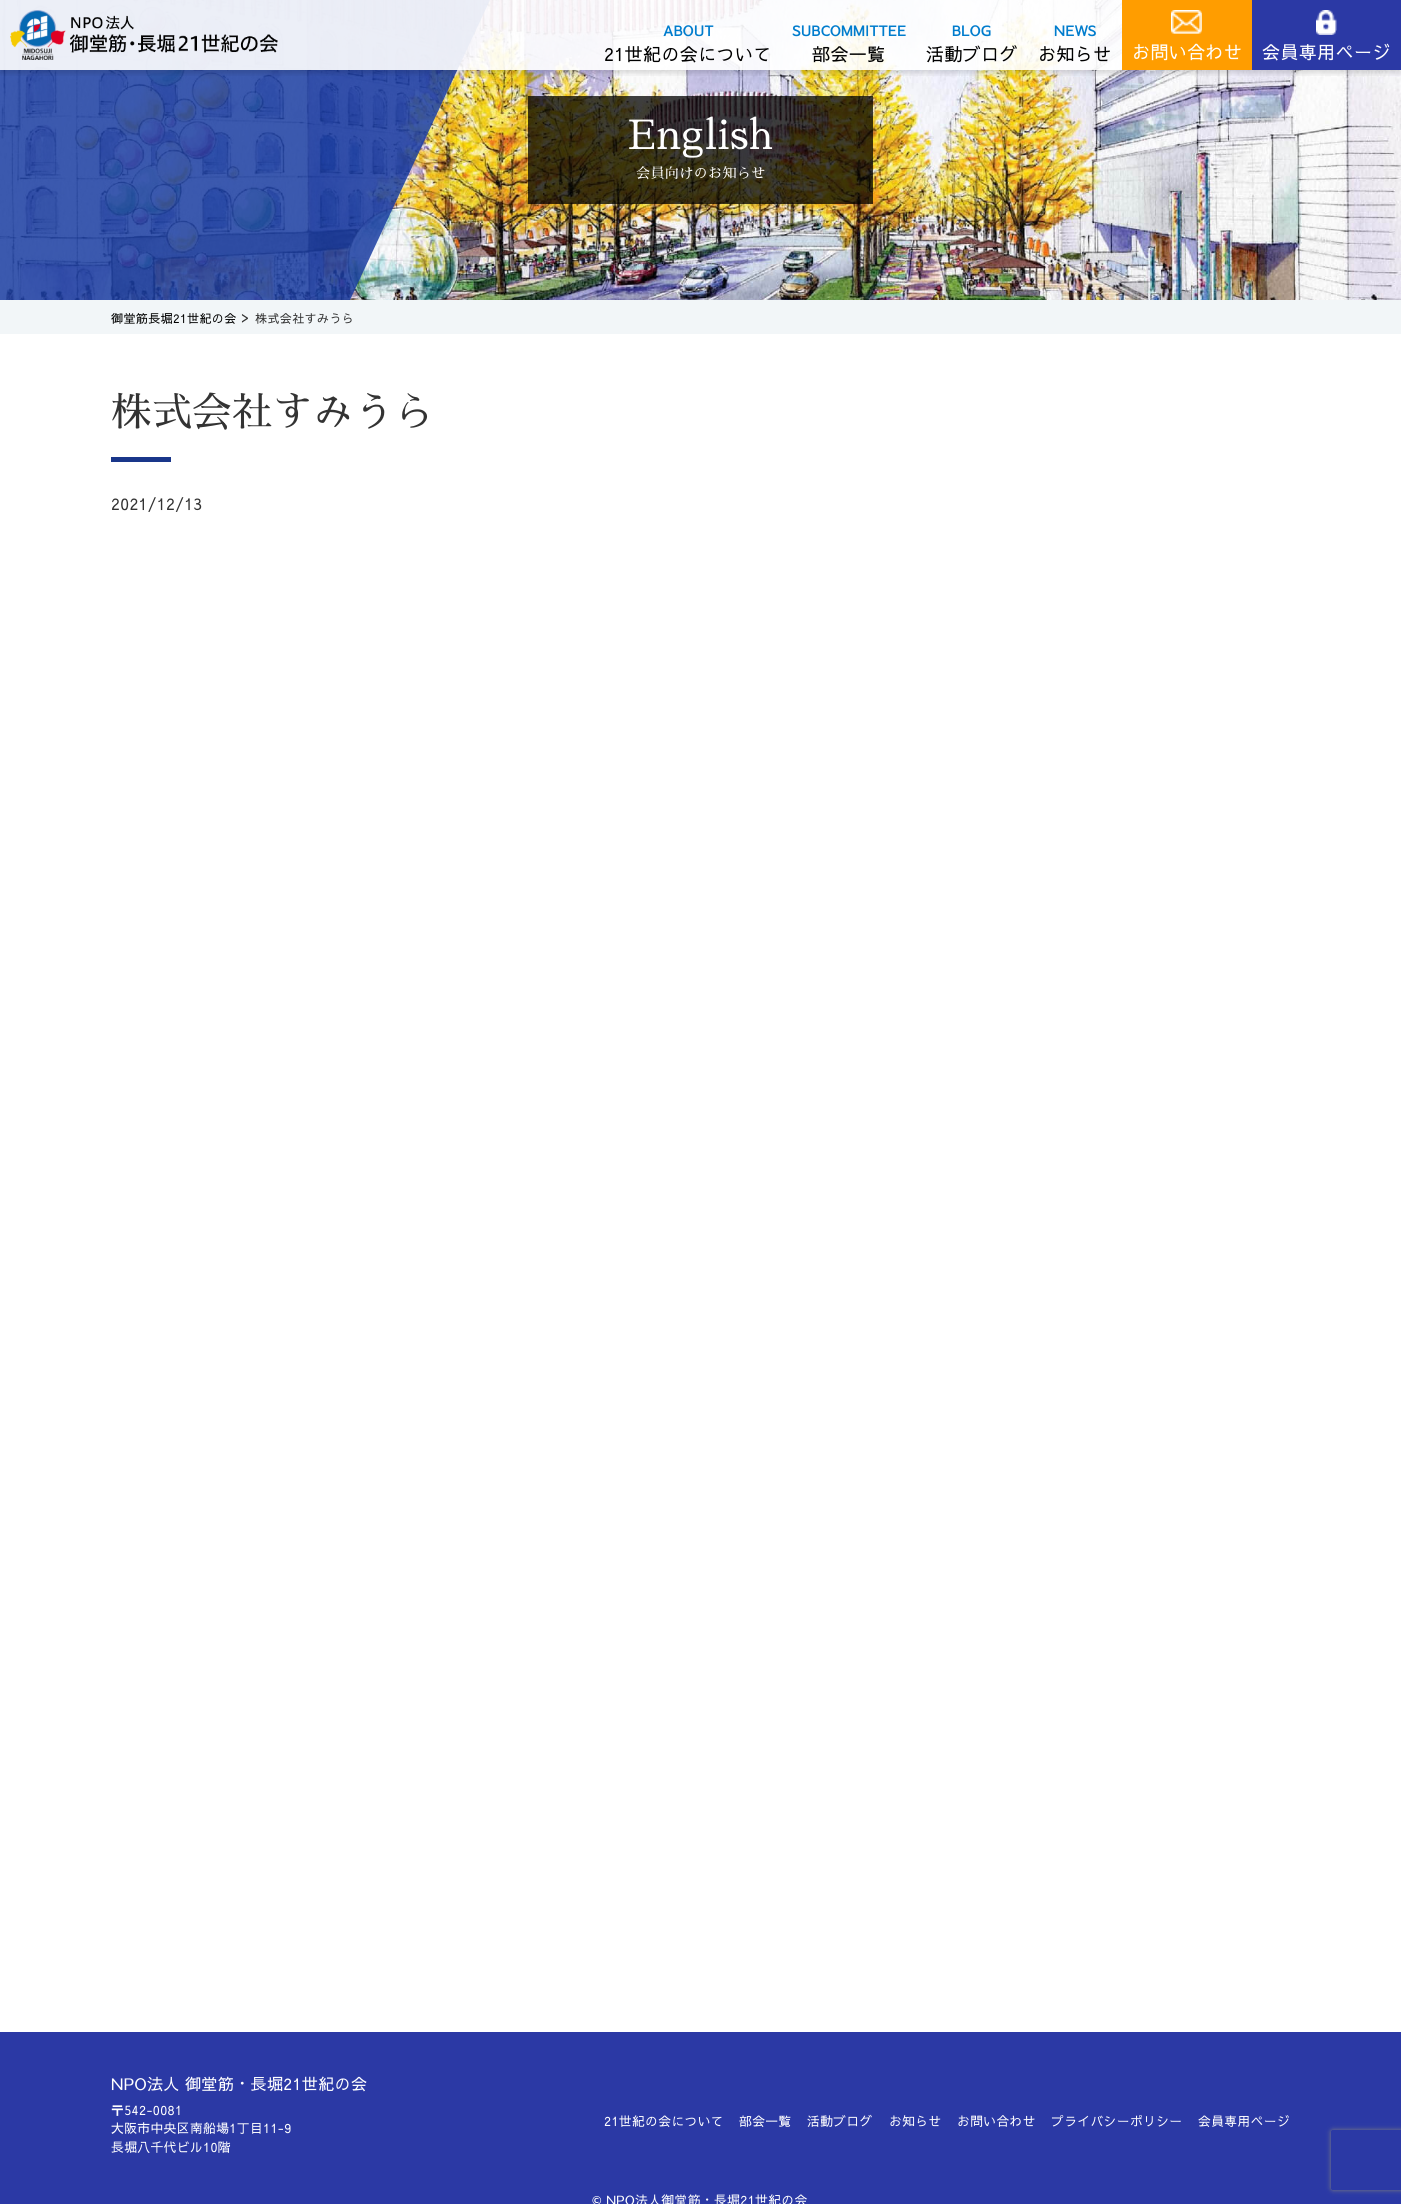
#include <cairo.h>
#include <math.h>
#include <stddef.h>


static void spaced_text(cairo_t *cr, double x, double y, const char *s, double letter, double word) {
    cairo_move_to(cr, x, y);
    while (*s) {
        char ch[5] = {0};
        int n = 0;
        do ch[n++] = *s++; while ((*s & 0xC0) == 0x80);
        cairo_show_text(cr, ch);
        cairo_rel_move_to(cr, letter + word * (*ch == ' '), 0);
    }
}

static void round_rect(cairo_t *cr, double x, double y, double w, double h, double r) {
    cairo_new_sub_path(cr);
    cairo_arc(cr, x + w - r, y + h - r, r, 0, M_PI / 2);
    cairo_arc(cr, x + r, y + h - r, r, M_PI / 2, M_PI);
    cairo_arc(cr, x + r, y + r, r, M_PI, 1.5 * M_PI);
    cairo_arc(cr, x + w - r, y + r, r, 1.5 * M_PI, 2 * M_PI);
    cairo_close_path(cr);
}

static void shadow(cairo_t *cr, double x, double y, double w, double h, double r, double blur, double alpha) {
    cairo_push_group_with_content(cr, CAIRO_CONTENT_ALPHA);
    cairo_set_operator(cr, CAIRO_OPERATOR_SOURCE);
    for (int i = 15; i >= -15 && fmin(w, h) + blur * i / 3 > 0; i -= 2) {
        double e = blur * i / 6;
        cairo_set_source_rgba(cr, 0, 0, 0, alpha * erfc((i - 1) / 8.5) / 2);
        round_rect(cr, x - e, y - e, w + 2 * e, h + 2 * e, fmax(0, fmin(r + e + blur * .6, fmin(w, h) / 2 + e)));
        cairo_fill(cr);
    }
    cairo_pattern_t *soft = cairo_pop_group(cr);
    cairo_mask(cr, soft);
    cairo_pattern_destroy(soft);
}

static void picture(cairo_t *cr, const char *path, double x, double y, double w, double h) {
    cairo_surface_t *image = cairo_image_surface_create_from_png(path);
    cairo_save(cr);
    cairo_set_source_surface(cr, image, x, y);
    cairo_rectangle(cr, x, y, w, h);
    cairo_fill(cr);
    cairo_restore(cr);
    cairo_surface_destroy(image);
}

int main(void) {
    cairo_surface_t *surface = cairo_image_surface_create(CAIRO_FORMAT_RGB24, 1401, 2204);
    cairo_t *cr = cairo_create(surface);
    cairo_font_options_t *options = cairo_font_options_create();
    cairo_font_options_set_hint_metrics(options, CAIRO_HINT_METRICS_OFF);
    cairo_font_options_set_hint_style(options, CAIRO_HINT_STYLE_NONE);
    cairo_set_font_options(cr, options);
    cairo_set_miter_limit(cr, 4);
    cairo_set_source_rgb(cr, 1, 1, 1);
    cairo_paint(cr);
    picture(cr, "img4.png", 0, 0, 1401, 300);
    cairo_set_source_rgba(cr, 0.102, 0.243, 0.631, 0.85);
    cairo_new_path(cr);
    cairo_move_to(cr, 0, 0);
    cairo_line_to(cr, 0, 300);
    cairo_line_to(cr, 350, 300);
    cairo_line_to(cr, 490, 0);
    cairo_close_path(cr);
    cairo_fill(cr);
    cairo_save(cr);
    cairo_rectangle(cr, 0, 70, 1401, 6);
    cairo_clip(cr);
    cairo_set_source_rgb(cr, 0, 0, 0);
    shadow(cr, 0, 3, 1401, 70, 0, 3, 0.15);
    cairo_restore(cr);
    cairo_set_source_rgba(cr, 1, 1, 1, 0.9);
    cairo_rectangle(cr, 0, 0, 1122, 70);
    cairo_fill(cr);
    picture(cr, "img1.png", 10, 10, 268, 50);
    cairo_select_font_face(cr, "Sawarabi Gothic", CAIRO_FONT_SLANT_NORMAL, CAIRO_FONT_WEIGHT_BOLD);
    cairo_set_font_size(cr, 14);
    cairo_set_source_rgb(cr, 0, 0.486, 0.804);
    spaced_text(cr, 663, 36, "ABOUT", 0.4, 0);
    cairo_select_font_face(cr, "Sawarabi Gothic", CAIRO_FONT_SLANT_NORMAL, CAIRO_FONT_WEIGHT_NORMAL);
    cairo_set_font_size(cr, 18);
    cairo_set_source_rgb(cr, 0, 0, 0);
    spaced_text(cr, 604, 61, "21世紀の会について", 0.4, 0);
    cairo_select_font_face(cr, "Sawarabi Gothic", CAIRO_FONT_SLANT_NORMAL, CAIRO_FONT_WEIGHT_BOLD);
    cairo_set_font_size(cr, 14);
    cairo_set_source_rgb(cr, 0, 0.486, 0.804);
    spaced_text(cr, 792, 36, "SUBCOMMITTEE", 0.4, 0);
    cairo_select_font_face(cr, "Sawarabi Gothic", CAIRO_FONT_SLANT_NORMAL, CAIRO_FONT_WEIGHT_NORMAL);
    cairo_set_font_size(cr, 18);
    cairo_set_source_rgb(cr, 0, 0, 0);
    spaced_text(cr, 812, 61, "部会一覧", 0.4, 0);
    cairo_select_font_face(cr, "Sawarabi Gothic", CAIRO_FONT_SLANT_NORMAL, CAIRO_FONT_WEIGHT_BOLD);
    cairo_set_font_size(cr, 14);
    cairo_set_source_rgb(cr, 0, 0.486, 0.804);
    spaced_text(cr, 952, 36, "BLOG", 0.4, 0);
    cairo_select_font_face(cr, "Sawarabi Gothic", CAIRO_FONT_SLANT_NORMAL, CAIRO_FONT_WEIGHT_NORMAL);
    cairo_set_font_size(cr, 18);
    cairo_set_source_rgb(cr, 0, 0, 0);
    spaced_text(cr, 926, 61, "活動ブログ", 0.4, 0);
    cairo_select_font_face(cr, "Sawarabi Gothic", CAIRO_FONT_SLANT_NORMAL, CAIRO_FONT_WEIGHT_BOLD);
    cairo_set_font_size(cr, 14);
    cairo_set_source_rgb(cr, 0, 0.486, 0.804);
    spaced_text(cr, 1054, 36, "NEWS", 0.4, 0);
    cairo_select_font_face(cr, "Sawarabi Gothic", CAIRO_FONT_SLANT_NORMAL, CAIRO_FONT_WEIGHT_NORMAL);
    cairo_set_font_size(cr, 18);
    cairo_set_source_rgb(cr, 0, 0, 0);
    spaced_text(cr, 1038, 61, "お知らせ", 0.4, 0);
    cairo_set_source_rgb(cr, 1, 0.616, 0);
    cairo_rectangle(cr, 1122, 0, 130, 70);
    cairo_fill(cr);
    picture(cr, "img2.png", 1171, 10, 31, 24);
    cairo_set_source_rgb(cr, 1, 1, 1);
    spaced_text(cr, 1132, 59, "お問い合わせ", 0.4, 0);
    cairo_set_source_rgb(cr, 0.169, 0.224, 0.647);
    cairo_rectangle(cr, 1252, 0, 149, 70);
    cairo_fill(cr);
    picture(cr, "img3.png", 1316, 10, 21, 25);
    cairo_set_source_rgb(cr, 1, 1, 1);
    spaced_text(cr, 1262, 59, "会員専用ページ", 0.4, 0);
    cairo_set_source_rgba(cr, 0, 0, 0, 0.75);
    cairo_rectangle(cr, 528, 96, 345, 108);
    cairo_fill(cr);
    cairo_select_font_face(cr, "Sawarabi Mincho", CAIRO_FONT_SLANT_NORMAL, CAIRO_FONT_WEIGHT_NORMAL);
    cairo_set_font_size(cr, 40);
    cairo_set_source_rgb(cr, 1, 1, 1);
    spaced_text(cr, 628, 149, "English", 0.4, 0);
    cairo_set_font_size(cr, 14);
    spaced_text(cr, 636, 178, "会員向けのお知らせ", 0.4, 0);
    cairo_set_source_rgb(cr, 0.949, 0.961, 0.969);
    cairo_rectangle(cr, 0, 300, 1401, 34);
    cairo_fill(cr);
    cairo_select_font_face(cr, "Sawarabi Gothic", CAIRO_FONT_SLANT_NORMAL, CAIRO_FONT_WEIGHT_NORMAL);
    cairo_set_font_size(cr, 12);
    cairo_set_source_rgb(cr, 0, 0, 0);
    spaced_text(cr, 111, 323, "御堂筋長堀21世紀の会", 0.4, 0);
    cairo_set_font_size(cr, 16);
    cairo_set_source_rgb(cr, 0.2, 0.2, 0.2);
    spaced_text(cr, 241, 323, ">", 0.4, 0);
    cairo_set_font_size(cr, 12);
    spaced_text(cr, 255, 323, "株式会社すみうら", 0.4, 0);
    cairo_select_font_face(cr, "Sawarabi Mincho", CAIRO_FONT_SLANT_NORMAL, CAIRO_FONT_WEIGHT_NORMAL);
    cairo_set_font_size(cr, 40);
    spaced_text(cr, 111, 426, "株式会社すみうら", 0.4, 0);
    cairo_set_source_rgb(cr, 0.098, 0.212, 0.541);
    cairo_rectangle(cr, 111, 457, 60, 5);
    cairo_fill(cr);
    cairo_select_font_face(cr, "Sawarabi Gothic", CAIRO_FONT_SLANT_NORMAL, CAIRO_FONT_WEIGHT_NORMAL);
    cairo_set_font_size(cr, 16);
    cairo_set_source_rgb(cr, 0.2, 0.2, 0.2);
    spaced_text(cr, 111, 510, "2021/12/13", 0.4, 0);
    cairo_set_source_rgb(cr, 0.169, 0.224, 0.647);
    cairo_rectangle(cr, 0, 2032, 1401, 172);
    cairo_fill(cr);
    cairo_set_source_rgb(cr, 1, 1, 1);
    spaced_text(cr, 111, 2090, "NPO法人 御堂筋・長堀21世紀の会", 0.4, 0);
    cairo_set_font_size(cr, 12.75);
    spaced_text(cr, 111, 2115, "〒542-0081", 0.4, 0);
    spaced_text(cr, 111, 2133, "大阪市中央区南船場1丁目11-9", 0.4, 0);
    spaced_text(cr, 111, 2152, "長堀八千代ビル10階", 0.4, 0);
    spaced_text(cr, 604, 2126, "21世紀の会について", 0.4, 0);
    spaced_text(cr, 739, 2126, "部会一覧", 0.4, 0);
    spaced_text(cr, 807, 2126, "活動ブログ", 0.4, 0);
    spaced_text(cr, 889, 2126, "お知らせ", 0.4, 0);
    spaced_text(cr, 957, 2126, "お問い合わせ", 0.4, 0);
    spaced_text(cr, 1051, 2126, "プライバシーポリシー", 0.4, 0);
    spaced_text(cr, 1198, 2126, "会員専用ページ", 0.4, 0);
    spaced_text(cr, 592, 2205, "© NPO法人御堂筋・長堀21世紀の会", 0.4, 0);
    cairo_save(cr);
    cairo_set_fill_rule(cr, CAIRO_FILL_RULE_EVEN_ODD);
    cairo_new_path(cr);
    cairo_move_to(cr, 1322, 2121);
    cairo_line_to(cr, 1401, 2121);
    cairo_line_to(cr, 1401, 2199);
    cairo_line_to(cr, 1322, 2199);
    cairo_close_path(cr);
    cairo_move_to(cr, 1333, 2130);
    cairo_line_to(cr, 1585, 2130);
    cairo_curve_to(cr, 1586, 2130, 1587, 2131, 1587, 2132);
    cairo_line_to(cr, 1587, 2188);
    cairo_curve_to(cr, 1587, 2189, 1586, 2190, 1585, 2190);
    cairo_line_to(cr, 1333, 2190);
    cairo_curve_to(cr, 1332, 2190, 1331, 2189, 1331, 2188);
    cairo_line_to(cr, 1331, 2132);
    cairo_curve_to(cr, 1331, 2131, 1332, 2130, 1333, 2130);
    cairo_close_path(cr);
    cairo_clip(cr);
    cairo_set_source_rgb(cr, 0.502, 0.502, 0.502);
    shadow(cr, 1331, 2130, 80, 60, 2, 2.5, 1);
    cairo_restore(cr);
    cairo_surface_write_to_png(surface, "page.png");
    cairo_font_options_destroy(options);
    cairo_destroy(cr);
    cairo_surface_destroy(surface);
    return 0;
}
